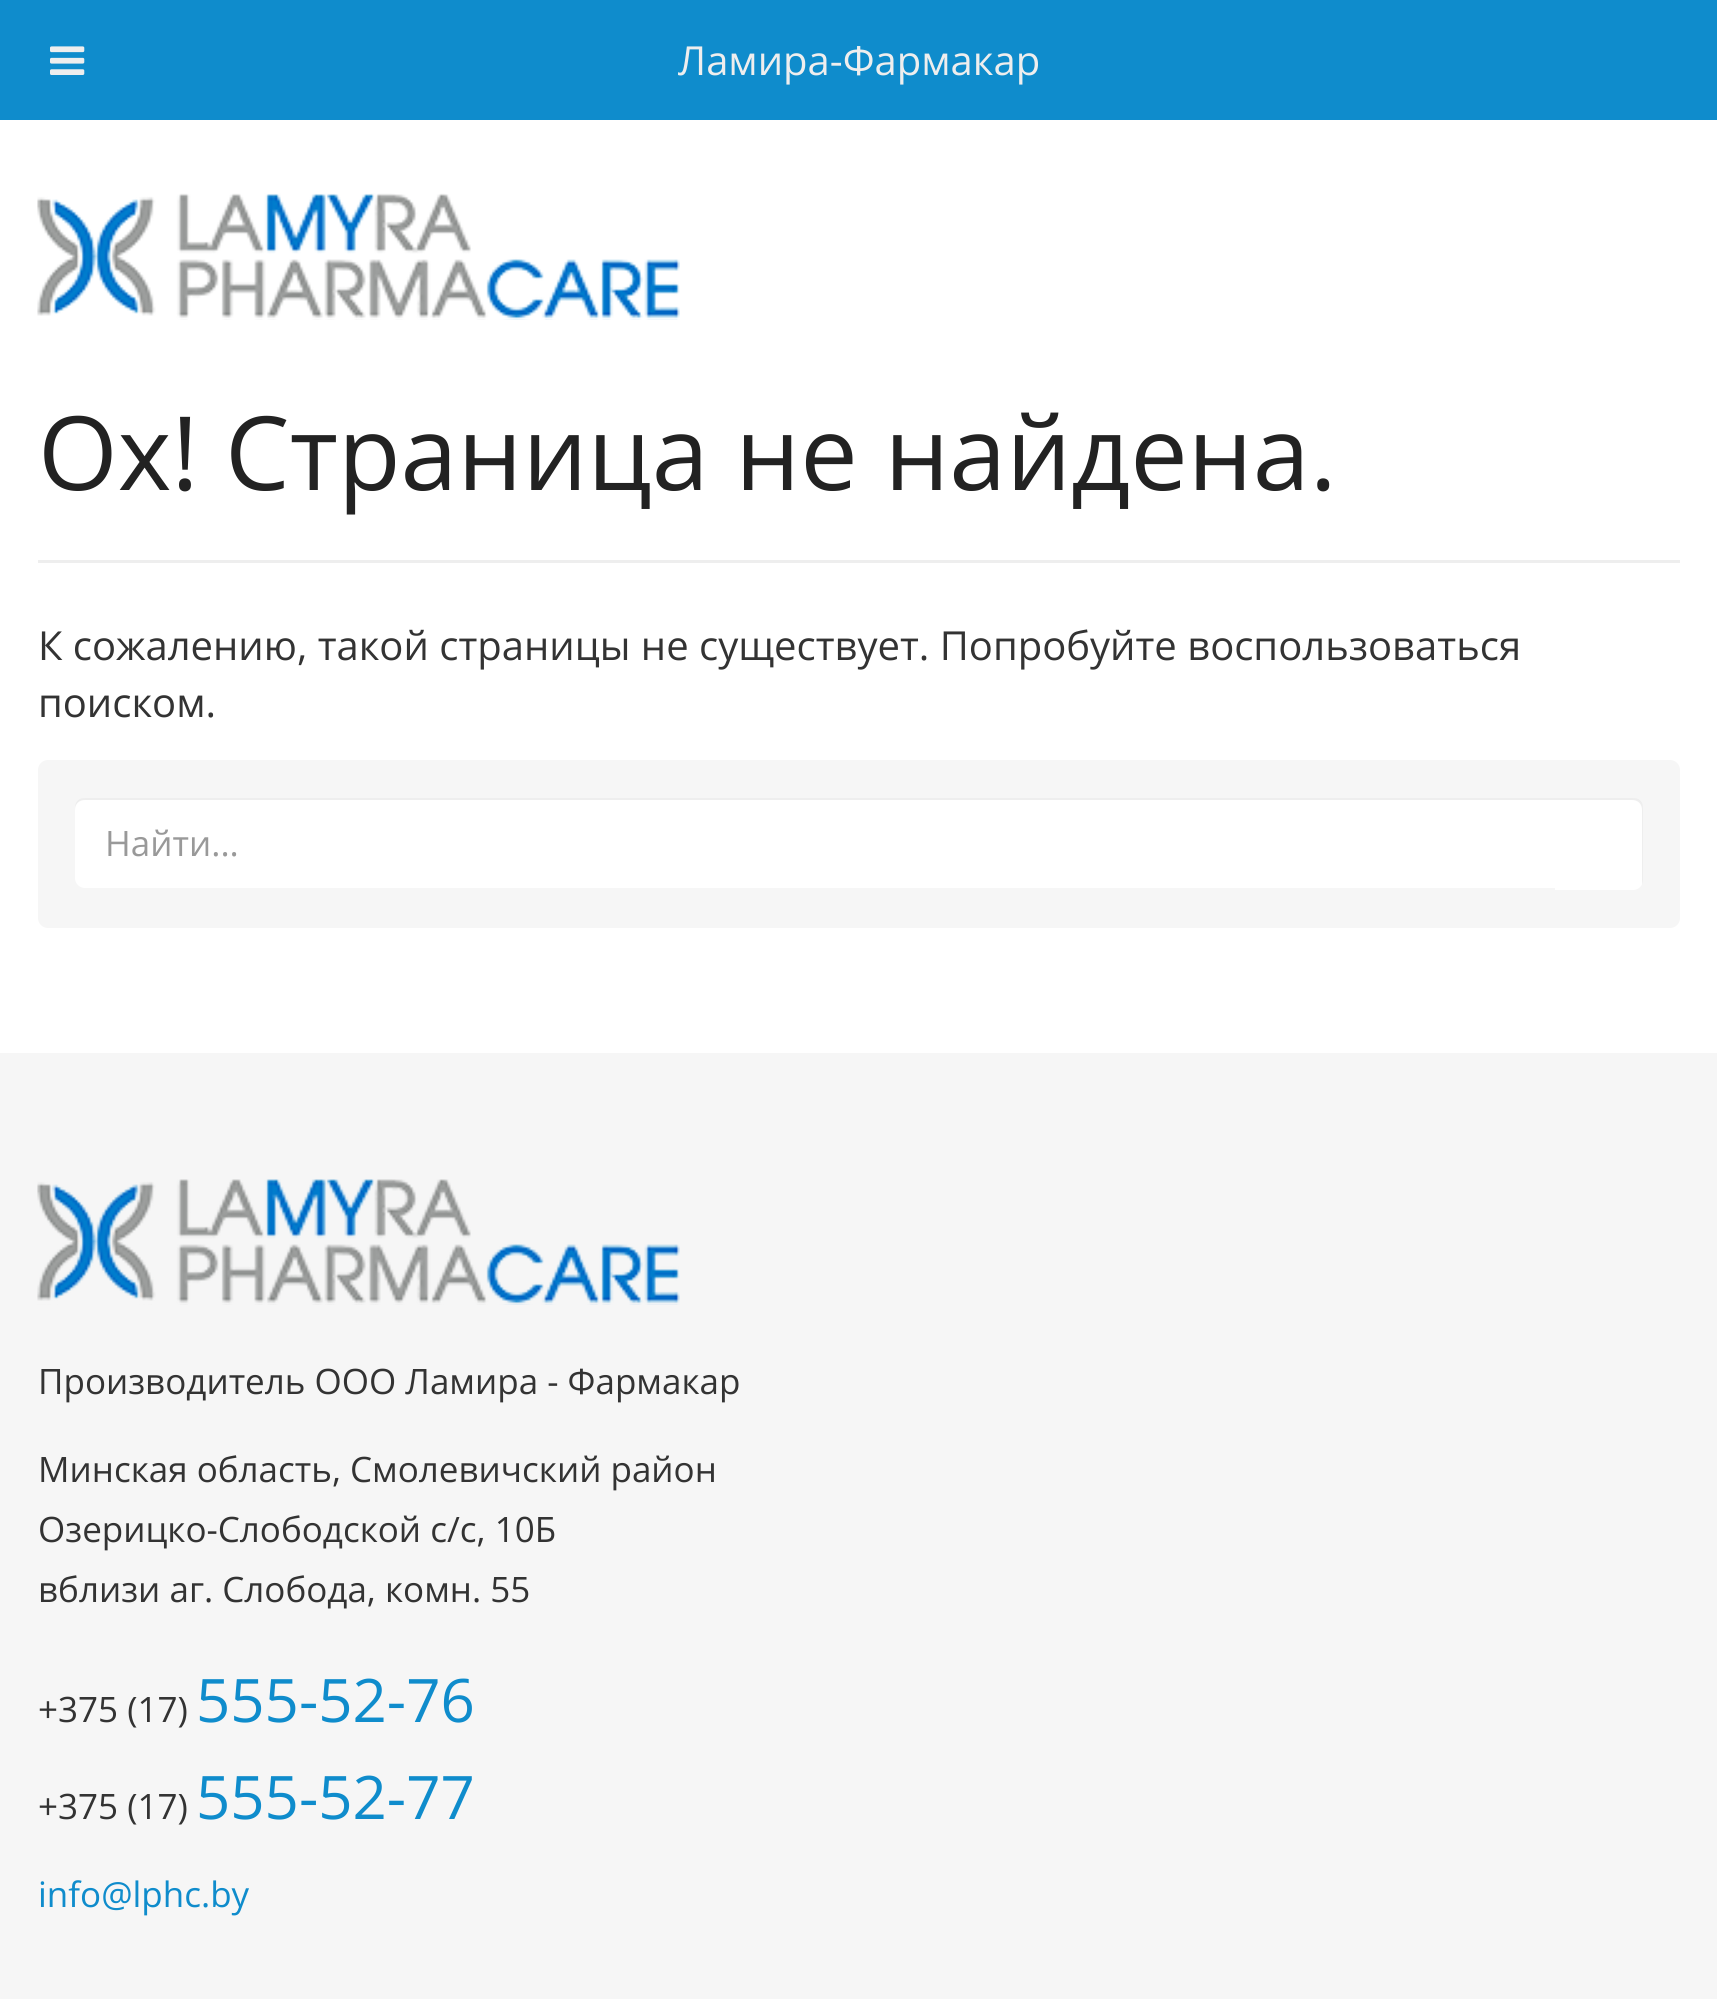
#include <cairo.h>
#include <math.h>
#include <stddef.h>


static void round_rect(cairo_t *cr, double x, double y, double w, double h, double r) {
    cairo_new_sub_path(cr);
    cairo_arc(cr, x + w - r, y + h - r, r, 0, M_PI / 2);
    cairo_arc(cr, x + r, y + h - r, r, M_PI / 2, M_PI);
    cairo_arc(cr, x + r, y + r, r, M_PI, 1.5 * M_PI);
    cairo_arc(cr, x + w - r, y + r, r, 1.5 * M_PI, 2 * M_PI);
    cairo_close_path(cr);
}

static void picture(cairo_t *cr, const char *path, double x, double y, double w, double h) {
    cairo_surface_t *image = cairo_image_surface_create_from_png(path);
    cairo_save(cr);
    cairo_set_source_surface(cr, image, x, y);
    cairo_rectangle(cr, x, y, w, h);
    cairo_fill(cr);
    cairo_restore(cr);
    cairo_surface_destroy(image);
}

int main(void) {
    cairo_surface_t *surface = cairo_image_surface_create(CAIRO_FORMAT_RGB24, 1717, 1999);
    cairo_t *cr = cairo_create(surface);
    cairo_font_options_t *options = cairo_font_options_create();
    cairo_font_options_set_hint_metrics(options, CAIRO_HINT_METRICS_OFF);
    cairo_font_options_set_hint_style(options, CAIRO_HINT_STYLE_NONE);
    cairo_set_font_options(cr, options);
    cairo_set_miter_limit(cr, 4);
    cairo_set_source_rgb(cr, 1, 1, 1);
    cairo_paint(cr);
    cairo_set_source_rgb(cr, 0.059, 0.549, 0.8);
    cairo_rectangle(cr, 0, 0, 1717, 120);
    cairo_fill(cr);
    picture(cr, "img1.png", 50, 46, 35, 29);
    cairo_select_font_face(cr, "Open Sans", CAIRO_FONT_SLANT_NORMAL, CAIRO_FONT_WEIGHT_NORMAL);
    cairo_set_font_size(cr, 40);
    cairo_set_source_rgb(cr, 0.933, 0.933, 0.933);
    cairo_move_to(cr, 678, 75);
    cairo_show_text(cr, "Ламира-Фармакар");
    picture(cr, "img2.png", 37, 193, 643, 127);
    cairo_rectangle(cr, 38, 560, 1642, 3);
    cairo_fill(cr);
    cairo_set_font_size(cr, 102.5);
    cairo_set_source_rgb(cr, 0.133, 0.133, 0.133);
    cairo_move_to(cr, 38, 490);
    cairo_show_text(cr, "Ох! Страница не найдена.");
    cairo_set_font_size(cr, 40);
    cairo_set_source_rgb(cr, 0.2, 0.2, 0.2);
    cairo_move_to(cr, 38, 660);
    cairo_show_text(cr, "К сожалению, такой страницы не существует. Попробуйте воспользоваться");
    cairo_move_to(cr, 38, 717);
    cairo_show_text(cr, "поиском.");
    cairo_set_source_rgb(cr, 0.961, 0.961, 0.961);
    round_rect(cr, 38, 760, 1642, 168, 10);
    cairo_fill(cr);
    cairo_set_source_rgb(cr, 1, 1, 1);
    cairo_new_path(cr);
    cairo_move_to(cr, 85, 798);
    cairo_line_to(cr, 1558, 798);
    cairo_line_to(cr, 1558, 888);
    cairo_line_to(cr, 85, 888);
    cairo_curve_to(cr, 79.5, 888, 75, 883.5, 75, 878);
    cairo_line_to(cr, 75, 808);
    cairo_curve_to(cr, 75, 802.5, 79.5, 798, 85, 798);
    cairo_close_path(cr);
    cairo_fill(cr);
    cairo_set_source_rgba(cr, 0, 0, 0, 0.07);
    cairo_new_path(cr);
    cairo_move_to(cr, 85, 800);
    cairo_line_to(cr, 1558, 800);
    cairo_line_to(cr, 1558, 798);
    cairo_line_to(cr, 85, 798);
    cairo_curve_to(cr, 79, 798, 75, 802, 75, 808);
    cairo_line_to(cr, 75, 810);
    cairo_curve_to(cr, 75, 804, 79, 800, 85, 800);
    cairo_close_path(cr);
    cairo_fill(cr);
    cairo_set_font_size(cr, 35);
    cairo_set_source_rgb(cr, 0.6, 0.6, 0.6);
    cairo_move_to(cr, 105, 856);
    cairo_show_text(cr, "Найти...");
    cairo_set_source_rgb(cr, 1, 1, 1);
    cairo_new_path(cr);
    cairo_move_to(cr, 1555, 798);
    cairo_line_to(cr, 1633, 798);
    cairo_curve_to(cr, 1638.5, 798, 1643, 802.5, 1643, 808);
    cairo_line_to(cr, 1643, 880);
    cairo_curve_to(cr, 1643, 885.5, 1638.5, 890, 1633, 890);
    cairo_line_to(cr, 1555, 890);
    cairo_close_path(cr);
    cairo_fill(cr);
    cairo_set_source_rgba(cr, 0, 0, 0, 0.07);
    cairo_new_path(cr);
    cairo_move_to(cr, 1555, 800);
    cairo_line_to(cr, 1632, 800);
    cairo_curve_to(cr, 1638, 800, 1642, 804, 1642, 810);
    cairo_line_to(cr, 1642, 882);
    cairo_line_to(cr, 1642, 885);
    cairo_curve_to(cr, 1642, 884, 1643, 882, 1643, 880);
    cairo_line_to(cr, 1643, 808);
    cairo_curve_to(cr, 1643, 802, 1639, 798, 1633, 798);
    cairo_line_to(cr, 1555, 798);
    cairo_close_path(cr);
    cairo_fill(cr);
    cairo_set_source_rgb(cr, 0.961, 0.961, 0.961);
    cairo_rectangle(cr, 0, 1053, 1717, 946);
    cairo_fill(cr);
    picture(cr, "img3.png", 37, 1179, 643, 126);
    cairo_set_source_rgb(cr, 0.2, 0.2, 0.2);
    cairo_move_to(cr, 38, 1394);
    cairo_show_text(cr, "Производитель ООО Ламира - Фармакар");
    cairo_move_to(cr, 38, 1482);
    cairo_show_text(cr, "Минская область, Смолевичский район");
    cairo_move_to(cr, 38, 1542);
    cairo_show_text(cr, "Озерицко-Слободской с/с, 10Б");
    cairo_move_to(cr, 38, 1602);
    cairo_show_text(cr, "вблизи аг. Слобода, комн. 55");
    cairo_move_to(cr, 38, 1722);
    cairo_show_text(cr, "+375 (17)");
    cairo_set_font_size(cr, 60);
    cairo_set_source_rgb(cr, 0.059, 0.549, 0.8);
    cairo_move_to(cr, 196, 1722);
    cairo_show_text(cr, "555-52-76");
    cairo_set_font_size(cr, 35);
    cairo_set_source_rgb(cr, 0.2, 0.2, 0.2);
    cairo_move_to(cr, 38, 1819);
    cairo_show_text(cr, "+375 (17)");
    cairo_set_font_size(cr, 60);
    cairo_set_source_rgb(cr, 0.059, 0.549, 0.8);
    cairo_move_to(cr, 196, 1819);
    cairo_show_text(cr, "555-52-77");
    cairo_set_font_size(cr, 35);
    cairo_move_to(cr, 38, 1907);
    cairo_show_text(cr, "info@lphc.by");
    cairo_surface_write_to_png(surface, "page.png");
    cairo_font_options_destroy(options);
    cairo_destroy(cr);
    cairo_surface_destroy(surface);
    return 0;
}
